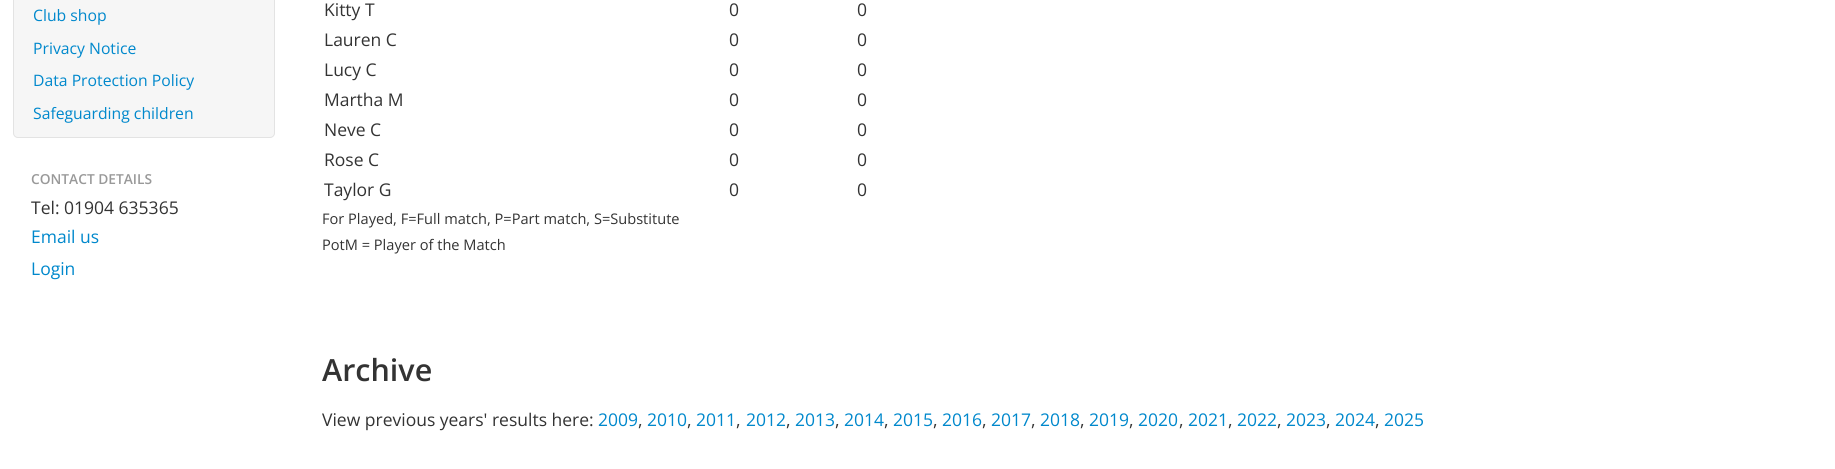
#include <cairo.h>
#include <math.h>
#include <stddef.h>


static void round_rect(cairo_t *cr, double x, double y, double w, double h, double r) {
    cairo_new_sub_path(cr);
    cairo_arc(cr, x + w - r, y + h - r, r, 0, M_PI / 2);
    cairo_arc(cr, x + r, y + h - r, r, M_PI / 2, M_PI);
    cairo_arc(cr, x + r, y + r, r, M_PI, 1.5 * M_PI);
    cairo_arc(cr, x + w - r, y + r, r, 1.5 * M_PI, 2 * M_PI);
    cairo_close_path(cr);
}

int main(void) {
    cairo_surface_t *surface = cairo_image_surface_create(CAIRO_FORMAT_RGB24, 1835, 469);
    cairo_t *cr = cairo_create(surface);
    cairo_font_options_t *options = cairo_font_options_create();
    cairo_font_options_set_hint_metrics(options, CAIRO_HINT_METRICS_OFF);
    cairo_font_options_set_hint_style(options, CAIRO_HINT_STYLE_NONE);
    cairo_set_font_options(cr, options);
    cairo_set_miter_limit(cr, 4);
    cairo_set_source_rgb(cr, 1, 1, 1);
    cairo_paint(cr);
    cairo_set_source_rgb(cr, 0.961, 0.961, 0.961);
    round_rect(cr, 13.5, -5.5, 261, 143, 4.5);
    cairo_fill_preserve(cr);
    cairo_set_source_rgb(cr, 0.89, 0.89, 0.89);
    cairo_set_line_width(cr, 1);
    cairo_stroke(cr);
    cairo_select_font_face(cr, "Open Sans", CAIRO_FONT_SLANT_NORMAL, CAIRO_FONT_WEIGHT_NORMAL);
    cairo_set_font_size(cr, 15.75);
    cairo_set_source_rgb(cr, 0, 0.533, 0.8);
    cairo_move_to(cr, 33, 21);
    cairo_show_text(cr, "Club shop");
    cairo_move_to(cr, 33, 54);
    cairo_show_text(cr, "Privacy Notice");
    cairo_move_to(cr, 33, 86);
    cairo_show_text(cr, "Data Protection Policy");
    cairo_move_to(cr, 33, 119);
    cairo_show_text(cr, "Safeguarding children");
    cairo_select_font_face(cr, "Open Sans SemiBold", CAIRO_FONT_SLANT_NORMAL, CAIRO_FONT_WEIGHT_NORMAL);
    cairo_set_font_size(cr, 13.75);
    cairo_set_source_rgb(cr, 0.6, 0.6, 0.6);
    cairo_move_to(cr, 31, 184);
    cairo_show_text(cr, "CONTACT DETAILS");
    cairo_select_font_face(cr, "Open Sans", CAIRO_FONT_SLANT_NORMAL, CAIRO_FONT_WEIGHT_NORMAL);
    cairo_set_font_size(cr, 17.5);
    cairo_set_source_rgb(cr, 0.2, 0.2, 0.2);
    cairo_move_to(cr, 31, 214);
    cairo_show_text(cr, "Tel: 01904 635365");
    cairo_set_source_rgb(cr, 0, 0.533, 0.8);
    cairo_move_to(cr, 31, 243);
    cairo_show_text(cr, "Email us");
    cairo_move_to(cr, 31, 275);
    cairo_show_text(cr, "Login");
    cairo_set_source_rgb(cr, 0.2, 0.2, 0.2);
    cairo_move_to(cr, 324, 16);
    cairo_show_text(cr, "Kitty T");
    cairo_move_to(cr, 729, 16);
    cairo_show_text(cr, "0");
    cairo_move_to(cr, 857, 16);
    cairo_show_text(cr, "0");
    cairo_move_to(cr, 324, 46);
    cairo_show_text(cr, "Lauren C");
    cairo_move_to(cr, 729, 46);
    cairo_show_text(cr, "0");
    cairo_move_to(cr, 857, 46);
    cairo_show_text(cr, "0");
    cairo_move_to(cr, 324, 76);
    cairo_show_text(cr, "Lucy C");
    cairo_move_to(cr, 729, 76);
    cairo_show_text(cr, "0");
    cairo_move_to(cr, 857, 76);
    cairo_show_text(cr, "0");
    cairo_move_to(cr, 324, 106);
    cairo_show_text(cr, "Martha M");
    cairo_move_to(cr, 729, 106);
    cairo_show_text(cr, "0");
    cairo_move_to(cr, 857, 106);
    cairo_show_text(cr, "0");
    cairo_move_to(cr, 324, 136);
    cairo_show_text(cr, "Neve C");
    cairo_move_to(cr, 729, 136);
    cairo_show_text(cr, "0");
    cairo_move_to(cr, 857, 136);
    cairo_show_text(cr, "0");
    cairo_move_to(cr, 324, 166);
    cairo_show_text(cr, "Rose C");
    cairo_move_to(cr, 729, 166);
    cairo_show_text(cr, "0");
    cairo_move_to(cr, 857, 166);
    cairo_show_text(cr, "0");
    cairo_move_to(cr, 324, 196);
    cairo_show_text(cr, "Taylor G");
    cairo_move_to(cr, 729, 196);
    cairo_show_text(cr, "0");
    cairo_move_to(cr, 857, 196);
    cairo_show_text(cr, "0");
    cairo_set_font_size(cr, 14.6);
    cairo_move_to(cr, 322, 224);
    cairo_show_text(cr, "For Played, F=Full match, P=Part match, S=Substitute");
    cairo_move_to(cr, 322, 250);
    cairo_show_text(cr, "PotM = Player of the Match");
    cairo_select_font_face(cr, "Open Sans SemiBold", CAIRO_FONT_SLANT_NORMAL, CAIRO_FONT_WEIGHT_NORMAL);
    cairo_set_font_size(cr, 30.5);
    cairo_move_to(cr, 322, 381);
    cairo_show_text(cr, "Archive");
    cairo_select_font_face(cr, "Open Sans", CAIRO_FONT_SLANT_NORMAL, CAIRO_FONT_WEIGHT_NORMAL);
    cairo_set_font_size(cr, 17.5);
    cairo_move_to(cr, 322, 426);
    cairo_show_text(cr, "View previous years' results here:");
    cairo_set_source_rgb(cr, 0, 0.533, 0.8);
    cairo_move_to(cr, 598, 426);
    cairo_show_text(cr, "2009");
    cairo_set_source_rgb(cr, 0.2, 0.2, 0.2);
    cairo_move_to(cr, 638, 426);
    cairo_show_text(cr, ",");
    cairo_set_source_rgb(cr, 0, 0.533, 0.8);
    cairo_move_to(cr, 647, 426);
    cairo_show_text(cr, "2010");
    cairo_set_source_rgb(cr, 0.2, 0.2, 0.2);
    cairo_move_to(cr, 687, 426);
    cairo_show_text(cr, ",");
    cairo_set_source_rgb(cr, 0, 0.533, 0.8);
    cairo_move_to(cr, 696, 426);
    cairo_show_text(cr, "2011");
    cairo_set_source_rgb(cr, 0.2, 0.2, 0.2);
    cairo_move_to(cr, 736, 426);
    cairo_show_text(cr, ",");
    cairo_set_source_rgb(cr, 0, 0.533, 0.8);
    cairo_move_to(cr, 746, 426);
    cairo_show_text(cr, "2012");
    cairo_set_source_rgb(cr, 0.2, 0.2, 0.2);
    cairo_move_to(cr, 786, 426);
    cairo_show_text(cr, ",");
    cairo_set_source_rgb(cr, 0, 0.533, 0.8);
    cairo_move_to(cr, 795, 426);
    cairo_show_text(cr, "2013");
    cairo_set_source_rgb(cr, 0.2, 0.2, 0.2);
    cairo_move_to(cr, 835, 426);
    cairo_show_text(cr, ",");
    cairo_set_source_rgb(cr, 0, 0.533, 0.8);
    cairo_move_to(cr, 844, 426);
    cairo_show_text(cr, "2014");
    cairo_set_source_rgb(cr, 0.2, 0.2, 0.2);
    cairo_move_to(cr, 884, 426);
    cairo_show_text(cr, ",");
    cairo_set_source_rgb(cr, 0, 0.533, 0.8);
    cairo_move_to(cr, 893, 426);
    cairo_show_text(cr, "2015");
    cairo_set_source_rgb(cr, 0.2, 0.2, 0.2);
    cairo_move_to(cr, 933, 426);
    cairo_show_text(cr, ",");
    cairo_set_source_rgb(cr, 0, 0.533, 0.8);
    cairo_move_to(cr, 942, 426);
    cairo_show_text(cr, "2016");
    cairo_set_source_rgb(cr, 0.2, 0.2, 0.2);
    cairo_move_to(cr, 982, 426);
    cairo_show_text(cr, ",");
    cairo_set_source_rgb(cr, 0, 0.533, 0.8);
    cairo_move_to(cr, 991, 426);
    cairo_show_text(cr, "2017");
    cairo_set_source_rgb(cr, 0.2, 0.2, 0.2);
    cairo_move_to(cr, 1031, 426);
    cairo_show_text(cr, ",");
    cairo_set_source_rgb(cr, 0, 0.533, 0.8);
    cairo_move_to(cr, 1040, 426);
    cairo_show_text(cr, "2018");
    cairo_set_source_rgb(cr, 0.2, 0.2, 0.2);
    cairo_move_to(cr, 1080, 426);
    cairo_show_text(cr, ",");
    cairo_set_source_rgb(cr, 0, 0.533, 0.8);
    cairo_move_to(cr, 1089, 426);
    cairo_show_text(cr, "2019");
    cairo_set_source_rgb(cr, 0.2, 0.2, 0.2);
    cairo_move_to(cr, 1129, 426);
    cairo_show_text(cr, ",");
    cairo_set_source_rgb(cr, 0, 0.533, 0.8);
    cairo_move_to(cr, 1138, 426);
    cairo_show_text(cr, "2020");
    cairo_set_source_rgb(cr, 0.2, 0.2, 0.2);
    cairo_move_to(cr, 1179, 426);
    cairo_show_text(cr, ",");
    cairo_set_source_rgb(cr, 0, 0.533, 0.8);
    cairo_move_to(cr, 1188, 426);
    cairo_show_text(cr, "2021");
    cairo_set_source_rgb(cr, 0.2, 0.2, 0.2);
    cairo_move_to(cr, 1228, 426);
    cairo_show_text(cr, ",");
    cairo_set_source_rgb(cr, 0, 0.533, 0.8);
    cairo_move_to(cr, 1237, 426);
    cairo_show_text(cr, "2022");
    cairo_set_source_rgb(cr, 0.2, 0.2, 0.2);
    cairo_move_to(cr, 1277, 426);
    cairo_show_text(cr, ",");
    cairo_set_source_rgb(cr, 0, 0.533, 0.8);
    cairo_move_to(cr, 1286, 426);
    cairo_show_text(cr, "2023");
    cairo_set_source_rgb(cr, 0.2, 0.2, 0.2);
    cairo_move_to(cr, 1326, 426);
    cairo_show_text(cr, ",");
    cairo_set_source_rgb(cr, 0, 0.533, 0.8);
    cairo_move_to(cr, 1335, 426);
    cairo_show_text(cr, "2024");
    cairo_set_source_rgb(cr, 0.2, 0.2, 0.2);
    cairo_move_to(cr, 1375, 426);
    cairo_show_text(cr, ",");
    cairo_set_source_rgb(cr, 0, 0.533, 0.8);
    cairo_move_to(cr, 1384, 426);
    cairo_show_text(cr, "2025");
    cairo_surface_write_to_png(surface, "page.png");
    cairo_font_options_destroy(options);
    cairo_destroy(cr);
    cairo_surface_destroy(surface);
    return 0;
}
